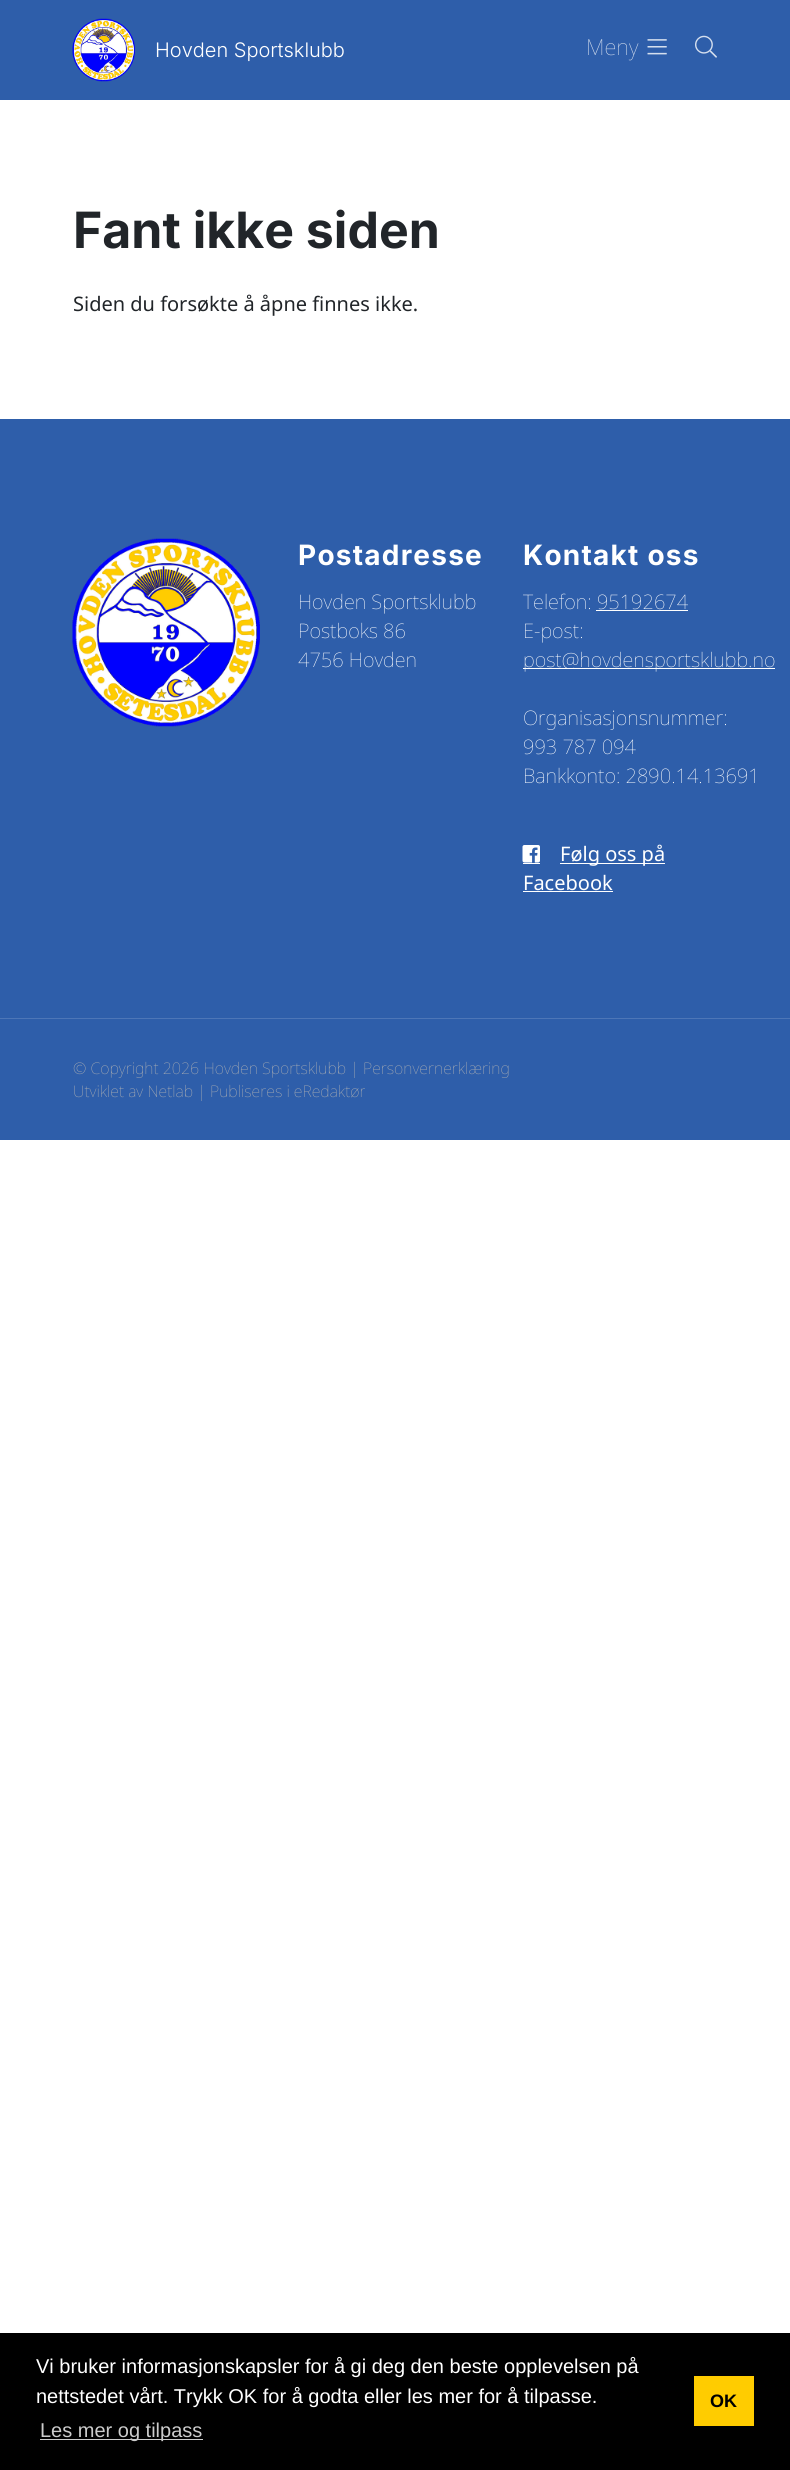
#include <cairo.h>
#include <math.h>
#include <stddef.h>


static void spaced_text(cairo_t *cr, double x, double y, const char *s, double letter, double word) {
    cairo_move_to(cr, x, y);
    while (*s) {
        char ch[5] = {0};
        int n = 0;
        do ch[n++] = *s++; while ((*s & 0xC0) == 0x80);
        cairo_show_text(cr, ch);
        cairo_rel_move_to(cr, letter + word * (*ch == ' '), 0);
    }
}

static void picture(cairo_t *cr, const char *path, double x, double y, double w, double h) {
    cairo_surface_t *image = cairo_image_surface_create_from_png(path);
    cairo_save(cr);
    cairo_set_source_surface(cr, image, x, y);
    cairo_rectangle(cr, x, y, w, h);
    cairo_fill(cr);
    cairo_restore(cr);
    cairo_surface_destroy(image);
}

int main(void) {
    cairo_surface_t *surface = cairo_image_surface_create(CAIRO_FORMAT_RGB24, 790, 2470);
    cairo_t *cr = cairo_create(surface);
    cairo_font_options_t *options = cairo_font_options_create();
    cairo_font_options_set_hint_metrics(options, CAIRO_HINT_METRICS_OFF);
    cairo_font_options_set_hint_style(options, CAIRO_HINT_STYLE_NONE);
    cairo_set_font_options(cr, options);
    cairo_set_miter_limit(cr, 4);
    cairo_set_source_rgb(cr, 1, 1, 1);
    cairo_paint(cr);
    cairo_set_source_rgb(cr, 0.18, 0.369, 0.667);
    cairo_rectangle(cr, 0, 0, 790, 100);
    cairo_fill(cr);
    picture(cr, "img1.png", 72, 18, 63, 64);
    cairo_select_font_face(cr, "Inter Light", CAIRO_FONT_SLANT_NORMAL, CAIRO_FONT_WEIGHT_NORMAL);
    cairo_set_font_size(cr, 20);
    cairo_set_source_rgb(cr, 1, 1, 1);
    cairo_move_to(cr, 155, 57);
    cairo_show_text(cr, "Hovden Sportsklubb");
    cairo_select_font_face(cr, "Noto Sans Thin", CAIRO_FONT_SLANT_NORMAL, CAIRO_FONT_WEIGHT_NORMAL);
    cairo_set_font_size(cr, 22);
    cairo_set_source_rgb(cr, 0.835, 0.875, 0.933);
    cairo_move_to(cr, 586, 55);
    cairo_show_text(cr, "Meny");
    picture(cr, "img2.png", 647, 39, 20, 16);
    picture(cr, "img3.png", 695, 35, 22, 23);
    cairo_select_font_face(cr, "Inter", CAIRO_FONT_SLANT_NORMAL, CAIRO_FONT_WEIGHT_BOLD);
    cairo_set_font_size(cr, 50);
    cairo_set_source_rgb(cr, 0.129, 0.145, 0.161);
    cairo_move_to(cr, 73, 248);
    cairo_show_text(cr, "Fant ikke siden");
    cairo_select_font_face(cr, "Noto Sans", CAIRO_FONT_SLANT_NORMAL, CAIRO_FONT_WEIGHT_NORMAL);
    cairo_set_font_size(cr, 20);
    cairo_move_to(cr, 73, 311);
    cairo_show_text(cr, "Siden du forsøkte å åpne finnes ikke.");
    cairo_set_source_rgb(cr, 0.18, 0.369, 0.667);
    cairo_rectangle(cr, 0, 419, 790, 599);
    cairo_fill(cr);
    picture(cr, "img4.png", 72, 538, 188, 189);
    cairo_select_font_face(cr, "Inter", CAIRO_FONT_SLANT_NORMAL, CAIRO_FONT_WEIGHT_BOLD);
    cairo_set_font_size(cr, 28);
    cairo_set_source_rgb(cr, 1, 1, 1);
    spaced_text(cr, 298, 565, "Postadresse", 1.25, 0);
    cairo_select_font_face(cr, "Noto Sans Thin", CAIRO_FONT_SLANT_NORMAL, CAIRO_FONT_WEIGHT_NORMAL);
    cairo_set_font_size(cr, 20);
    cairo_move_to(cr, 298, 609);
    cairo_show_text(cr, "Hovden Sportsklubb");
    cairo_move_to(cr, 298, 638);
    cairo_show_text(cr, "Postboks 86");
    cairo_move_to(cr, 298, 667);
    cairo_show_text(cr, "4756 Hovden");
    cairo_select_font_face(cr, "Inter", CAIRO_FONT_SLANT_NORMAL, CAIRO_FONT_WEIGHT_BOLD);
    cairo_set_font_size(cr, 28);
    spaced_text(cr, 523, 565, "Kontakt oss", 1.25, 0);
    cairo_select_font_face(cr, "Noto Sans Thin", CAIRO_FONT_SLANT_NORMAL, CAIRO_FONT_WEIGHT_NORMAL);
    cairo_set_font_size(cr, 20);
    cairo_move_to(cr, 523, 609);
    cairo_show_text(cr, "Telefon: 95192674");
    cairo_rectangle(cr, 596, 610, 92, 1);
    cairo_fill(cr);
    cairo_move_to(cr, 523, 638);
    cairo_show_text(cr, "E-post:");
    cairo_rectangle(cr, 523, 668, 252, 1);
    cairo_fill(cr);
    cairo_move_to(cr, 523, 667);
    cairo_show_text(cr, "post@hovdensportsklubb.no");
    cairo_move_to(cr, 523, 725);
    cairo_show_text(cr, "Organisasjonsnummer:");
    cairo_move_to(cr, 523, 754);
    cairo_show_text(cr, "993 787 094");
    cairo_move_to(cr, 523, 783);
    cairo_show_text(cr, "Bankkonto: 2890.14.13691");
    picture(cr, "img5.png", 522, 845, 18, 18);
    cairo_rectangle(cr, 560, 863, 105, 1);
    cairo_fill(cr);
    cairo_select_font_face(cr, "Noto Sans", CAIRO_FONT_SLANT_NORMAL, CAIRO_FONT_WEIGHT_NORMAL);
    cairo_move_to(cr, 560, 861);
    cairo_show_text(cr, "Følg oss på");
    cairo_rectangle(cr, 523, 863, 17, 1);
    cairo_fill(cr);
    cairo_move_to(cr, 523, 890);
    cairo_show_text(cr, "Facebook");
    cairo_rectangle(cr, 523, 891, 90, 1);
    cairo_fill(cr);
    cairo_set_source_rgb(cr, 0.18, 0.369, 0.667);
    cairo_rectangle(cr, 0, 1019, 790, 121);
    cairo_fill(cr);
    cairo_set_source_rgb(cr, 0.302, 0.463, 0.718);
    cairo_rectangle(cr, 0, 1018, 790, 1);
    cairo_fill(cr);
    cairo_select_font_face(cr, "Noto Sans Thin", CAIRO_FONT_SLANT_NORMAL, CAIRO_FONT_WEIGHT_NORMAL);
    cairo_set_font_size(cr, 16);
    cairo_set_source_rgb(cr, 0.702, 0.702, 0.702);
    cairo_move_to(cr, 73, 1074);
    cairo_show_text(cr, "© Copyright 2026 Hovden Sportsklubb | Personvernerklæring");
    cairo_move_to(cr, 73, 1097);
    cairo_show_text(cr, "Utviklet av Netlab | Publiseres i eRedaktør");
    cairo_set_source_rgb(cr, 0, 0, 0);
    cairo_rectangle(cr, 0, 2333, 790, 137);
    cairo_fill(cr);
    cairo_select_font_face(cr, "Liberation Sans", CAIRO_FONT_SLANT_NORMAL, CAIRO_FONT_WEIGHT_NORMAL);
    cairo_set_font_size(cr, 20);
    cairo_set_source_rgb(cr, 1, 1, 1);
    cairo_move_to(cr, 36, 2373);
    cairo_show_text(cr, "Vi bruker informasjonskapsler for å gi deg den beste opplevelsen på");
    cairo_move_to(cr, 36, 2403);
    cairo_show_text(cr, "nettstedet vårt. Trykk OK for å godta eller les mer for å tilpasse.");
    cairo_set_source_rgb(cr, 0.8, 0.8, 0.8);
    cairo_rectangle(cr, 40, 2439, 163, 1);
    cairo_fill(cr);
    cairo_move_to(cr, 40, 2437);
    cairo_show_text(cr, "Les mer og tilpass");
    cairo_set_source_rgb(cr, 1, 0.8, 0);
    cairo_rectangle(cr, 694, 2376, 60, 50);
    cairo_fill(cr);
    cairo_select_font_face(cr, "Liberation Sans", CAIRO_FONT_SLANT_NORMAL, CAIRO_FONT_WEIGHT_BOLD);
    cairo_set_font_size(cr, 18);
    cairo_set_source_rgb(cr, 0, 0, 0);
    cairo_move_to(cr, 710, 2407);
    cairo_show_text(cr, "OK");
    cairo_surface_write_to_png(surface, "page.png");
    cairo_font_options_destroy(options);
    cairo_destroy(cr);
    cairo_surface_destroy(surface);
    return 0;
}
